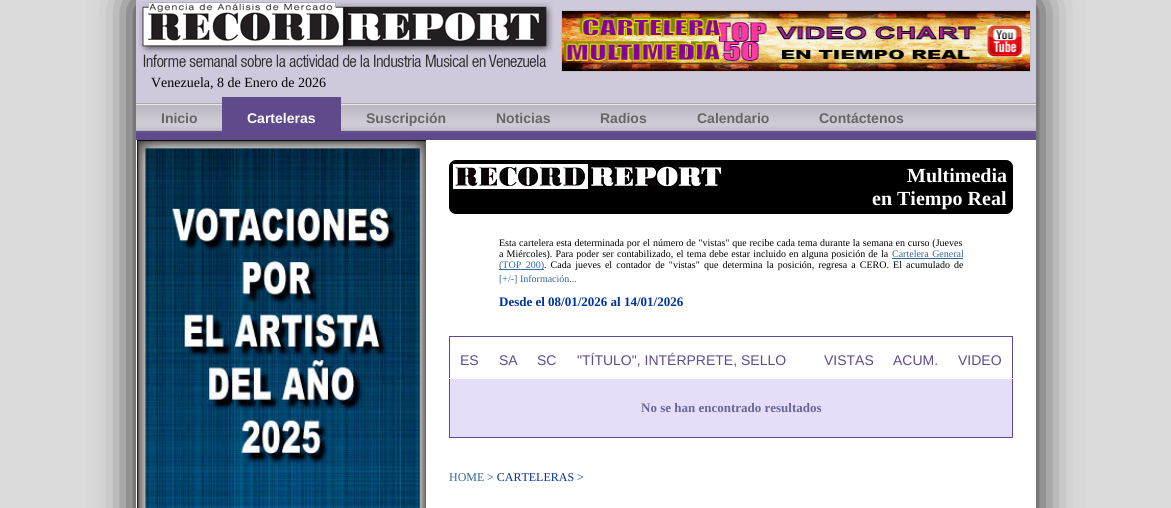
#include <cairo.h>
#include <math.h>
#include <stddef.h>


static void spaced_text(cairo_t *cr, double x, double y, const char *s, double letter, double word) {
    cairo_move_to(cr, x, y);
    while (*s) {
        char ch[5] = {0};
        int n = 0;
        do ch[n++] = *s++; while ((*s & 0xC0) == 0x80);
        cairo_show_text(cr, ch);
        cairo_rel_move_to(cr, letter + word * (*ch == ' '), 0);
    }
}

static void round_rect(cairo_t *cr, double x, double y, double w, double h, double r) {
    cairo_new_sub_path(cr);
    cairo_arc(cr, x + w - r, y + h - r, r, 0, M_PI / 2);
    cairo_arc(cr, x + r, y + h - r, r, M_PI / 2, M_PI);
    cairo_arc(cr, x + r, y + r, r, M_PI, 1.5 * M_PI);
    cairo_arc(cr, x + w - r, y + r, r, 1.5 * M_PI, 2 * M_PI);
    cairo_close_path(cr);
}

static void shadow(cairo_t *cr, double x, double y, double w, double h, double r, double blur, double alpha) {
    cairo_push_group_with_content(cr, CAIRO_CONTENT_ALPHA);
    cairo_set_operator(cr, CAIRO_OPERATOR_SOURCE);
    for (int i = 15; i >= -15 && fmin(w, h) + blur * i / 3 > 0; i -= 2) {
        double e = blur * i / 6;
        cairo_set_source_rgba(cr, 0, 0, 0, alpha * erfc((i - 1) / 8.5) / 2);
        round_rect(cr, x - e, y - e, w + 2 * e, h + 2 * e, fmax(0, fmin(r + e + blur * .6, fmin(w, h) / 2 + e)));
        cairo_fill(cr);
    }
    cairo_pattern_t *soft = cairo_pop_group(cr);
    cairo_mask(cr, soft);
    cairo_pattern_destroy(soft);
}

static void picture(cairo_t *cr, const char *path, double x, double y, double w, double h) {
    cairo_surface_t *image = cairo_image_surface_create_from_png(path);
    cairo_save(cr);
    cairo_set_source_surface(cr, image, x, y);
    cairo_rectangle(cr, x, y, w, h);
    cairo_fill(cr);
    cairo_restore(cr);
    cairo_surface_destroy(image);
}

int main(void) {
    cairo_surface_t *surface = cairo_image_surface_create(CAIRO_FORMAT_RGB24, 1171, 508);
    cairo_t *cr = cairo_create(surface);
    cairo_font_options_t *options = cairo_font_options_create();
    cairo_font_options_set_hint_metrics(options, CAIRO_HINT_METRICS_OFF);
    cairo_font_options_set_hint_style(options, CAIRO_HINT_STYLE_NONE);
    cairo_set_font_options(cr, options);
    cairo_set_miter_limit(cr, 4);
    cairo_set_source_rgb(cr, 0.859, 0.859, 0.859);
    cairo_paint(cr);
    cairo_set_source_rgb(cr, 0, 0, 0);
    shadow(cr, 136, 2, 900, 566, 0, 20, 0.9);
    cairo_set_source_rgb(cr, 1, 1, 1);
    cairo_rectangle(cr, 426, 140, 610, 368);
    cairo_fill(cr);
    cairo_set_source_rgb(cr, 0.812, 0.788, 0.863);
    cairo_rectangle(cr, 136, 0, 900, 97);
    cairo_fill(cr);
    picture(cr, "img1.png", 138, 2, 416, 65);
    cairo_rectangle(cr, 561.5, 10.5, 469, 61);
    cairo_set_source_rgb(cr, 0.753, 0.753, 0.753);
    cairo_set_line_width(cr, 1);
    cairo_stroke(cr);
    picture(cr, "img2.png", 562, 11, 468, 60);
    cairo_select_font_face(cr, "Liberation Serif", CAIRO_FONT_SLANT_NORMAL, CAIRO_FONT_WEIGHT_NORMAL);
    cairo_set_font_size(cr, 14);
    cairo_set_source_rgb(cr, 0, 0, 0);
    cairo_move_to(cr, 151, 87);
    cairo_show_text(cr, "Venezuela, 8 de Enero de 2026");
    picture(cr, "img3.png", 136, 97, 900, 43);
    cairo_select_font_face(cr, "Liberation Sans", CAIRO_FONT_SLANT_NORMAL, CAIRO_FONT_WEIGHT_BOLD);
    cairo_set_source_rgb(cr, 0.4, 0.4, 0.4);
    cairo_move_to(cr, 161, 123);
    cairo_show_text(cr, "Inicio");
    cairo_set_source_rgb(cr, 0.373, 0.294, 0.545);
    cairo_rectangle(cr, 222, 97, 119, 36);
    cairo_fill(cr);
    cairo_set_source_rgb(cr, 1, 1, 1);
    cairo_move_to(cr, 247, 123);
    cairo_show_text(cr, "Carteleras");
    cairo_set_source_rgb(cr, 0.4, 0.4, 0.4);
    cairo_move_to(cr, 366, 123);
    cairo_show_text(cr, "Suscripción");
    cairo_move_to(cr, 496, 123);
    cairo_show_text(cr, "Noticias");
    cairo_move_to(cr, 600, 123);
    cairo_show_text(cr, "Radios");
    cairo_move_to(cr, 697, 123);
    cairo_show_text(cr, "Calendario");
    cairo_move_to(cr, 819, 123);
    cairo_show_text(cr, "Contáctenos");
    picture(cr, "img4.png", 136, 140, 290, 368);
    cairo_set_source_rgb(cr, 0, 0, 0);
    round_rect(cr, 449, 160, 564, 54, 7);
    cairo_fill(cr);
    picture(cr, "img5.png", 453, 164, 269, 25);
    cairo_select_font_face(cr, "Liberation Serif", CAIRO_FONT_SLANT_NORMAL, CAIRO_FONT_WEIGHT_BOLD);
    cairo_set_font_size(cr, 20);
    cairo_set_source_rgb(cr, 1, 1, 1);
    cairo_move_to(cr, 907, 182);
    cairo_show_text(cr, "Multimedia");
    cairo_move_to(cr, 872, 205);
    cairo_show_text(cr, "en Tiempo Real");
    cairo_select_font_face(cr, "Liberation Serif", CAIRO_FONT_SLANT_NORMAL, CAIRO_FONT_WEIGHT_NORMAL);
    cairo_set_font_size(cr, 10);
    cairo_set_source_rgb(cr, 0, 0, 0);
    spaced_text(cr, 499, 246, "Esta cartelera esta determinada por el número de \"vistas\" que recibe cada tema durante la semana en curso (Jueves", 0, 0.3);
    spaced_text(cr, 499, 257, "a Miércoles). Para poder ser contabilizado, el tema debe estar incluido en alguna posición de la", 0, 0.6);
    cairo_set_source_rgb(cr, 0.2, 0.4, 0.6);
    spaced_text(cr, 892, 257, "Cartelera General", 0, 1);
    cairo_rectangle(cr, 892, 258, 71, 1);
    cairo_fill(cr);
    cairo_rectangle(cr, 499, 269, 45, 1);
    cairo_fill(cr);
    spaced_text(cr, 499, 268, "(TOP 200)", 0, 2);
    cairo_set_source_rgb(cr, 0, 0, 0);
    spaced_text(cr, 544, 268, ". Cada jueves el contador de \"vistas\" que determina la posición, regresa a CERO. El acumulado de", 0, 1.6);
    cairo_set_source_rgb(cr, 0.2, 0.4, 0.6);
    cairo_move_to(cr, 499, 282);
    cairo_show_text(cr, "[+/-] Información...");
    cairo_select_font_face(cr, "Liberation Serif", CAIRO_FONT_SLANT_NORMAL, CAIRO_FONT_WEIGHT_BOLD);
    cairo_set_font_size(cr, 13);
    cairo_set_source_rgb(cr, 0, 0.2, 0.6);
    cairo_move_to(cr, 499, 306);
    cairo_show_text(cr, "Desde el 08/01/2026 al 14/01/2026");
    cairo_set_source_rgb(cr, 0.373, 0.294, 0.545);
    cairo_rectangle(cr, 449, 336, 564, 1);
    cairo_fill(cr);
    cairo_rectangle(cr, 1012, 336, 1, 102);
    cairo_fill(cr);
    cairo_rectangle(cr, 449, 437, 564, 1);
    cairo_fill(cr);
    cairo_rectangle(cr, 449, 336, 1, 102);
    cairo_fill(cr);
    cairo_select_font_face(cr, "Liberation Sans", CAIRO_FONT_SLANT_NORMAL, CAIRO_FONT_WEIGHT_NORMAL);
    cairo_set_font_size(cr, 14);
    cairo_move_to(cr, 460, 365);
    cairo_show_text(cr, "ES");
    cairo_move_to(cr, 499, 365);
    cairo_show_text(cr, "SA");
    cairo_move_to(cr, 537, 365);
    cairo_show_text(cr, "SC");
    cairo_move_to(cr, 577, 365);
    cairo_show_text(cr, "\"TÍTULO\", INTÉRPRETE, SELLO");
    cairo_move_to(cr, 824, 365);
    cairo_show_text(cr, "VISTAS");
    cairo_move_to(cr, 893, 365);
    cairo_show_text(cr, "ACUM.");
    cairo_move_to(cr, 958, 365);
    cairo_show_text(cr, "VIDEO");
    cairo_set_source_rgb(cr, 0.902, 0.871, 0.973);
    cairo_rectangle(cr, 450, 379, 562, 58);
    cairo_fill(cr);
    cairo_set_source_rgb(cr, 1, 1, 1);
    cairo_rectangle(cr, 449, 378, 564, 1);
    cairo_fill(cr);
    cairo_select_font_face(cr, "Liberation Serif", CAIRO_FONT_SLANT_NORMAL, CAIRO_FONT_WEIGHT_BOLD);
    cairo_set_font_size(cr, 13);
    cairo_set_source_rgb(cr, 0.4, 0.4, 0.6);
    cairo_move_to(cr, 641, 412);
    cairo_show_text(cr, "No se han encontrado resultados");
    cairo_select_font_face(cr, "Liberation Serif", CAIRO_FONT_SLANT_NORMAL, CAIRO_FONT_WEIGHT_NORMAL);
    cairo_set_font_size(cr, 12);
    cairo_set_source_rgb(cr, 0.2, 0.4, 0.6);
    cairo_move_to(cr, 449, 481);
    cairo_show_text(cr, "HOME");
    cairo_set_source_rgb(cr, 0, 0.2, 0.6);
    cairo_move_to(cr, 487, 481);
    cairo_show_text(cr, "> CARTELERAS >");
    cairo_surface_write_to_png(surface, "page.png");
    cairo_font_options_destroy(options);
    cairo_destroy(cr);
    cairo_surface_destroy(surface);
    return 0;
}
